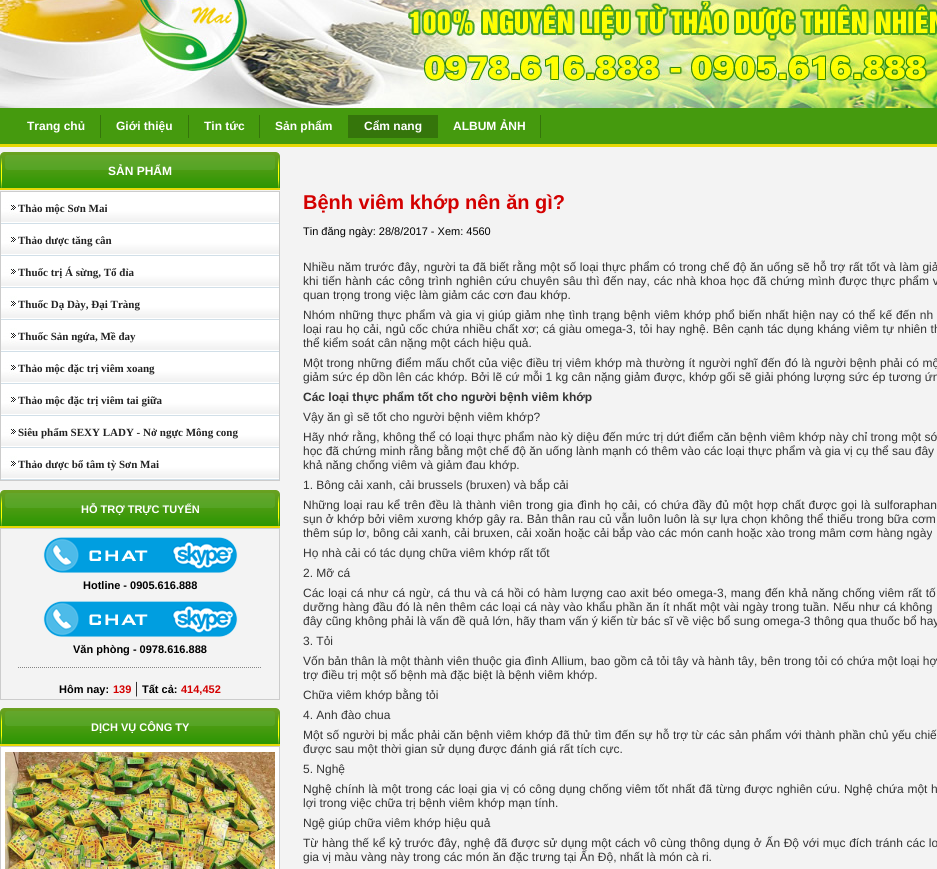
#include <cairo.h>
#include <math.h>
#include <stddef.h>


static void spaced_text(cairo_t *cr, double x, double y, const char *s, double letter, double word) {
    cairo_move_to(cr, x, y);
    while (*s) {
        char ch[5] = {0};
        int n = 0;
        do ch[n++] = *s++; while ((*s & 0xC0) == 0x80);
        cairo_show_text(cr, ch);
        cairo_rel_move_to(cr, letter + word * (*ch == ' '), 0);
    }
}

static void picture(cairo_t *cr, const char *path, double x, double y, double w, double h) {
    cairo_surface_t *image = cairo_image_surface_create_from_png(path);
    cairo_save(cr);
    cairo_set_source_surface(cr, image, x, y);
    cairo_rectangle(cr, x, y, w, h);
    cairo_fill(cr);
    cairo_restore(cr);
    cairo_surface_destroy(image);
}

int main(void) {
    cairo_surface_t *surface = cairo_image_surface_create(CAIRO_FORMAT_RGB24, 937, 869);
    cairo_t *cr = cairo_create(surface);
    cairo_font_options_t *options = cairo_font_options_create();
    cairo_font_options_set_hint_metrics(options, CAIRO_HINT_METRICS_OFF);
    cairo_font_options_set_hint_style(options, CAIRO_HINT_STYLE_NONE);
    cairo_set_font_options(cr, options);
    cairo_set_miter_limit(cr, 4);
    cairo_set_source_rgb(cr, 0.953, 0.953, 0.953);
    cairo_paint(cr);
    picture(cr, "img1.png", 0, 0, 937, 108);
    cairo_set_source_rgb(cr, 0.271, 0.604, 0.055);
    cairo_rectangle(cr, 0, 108, 937, 36);
    cairo_fill(cr);
    cairo_set_source_rgb(cr, 0.208, 0.459, 0.043);
    cairo_rectangle(cr, 100, 115, 1, 23);
    cairo_fill(cr);
    cairo_select_font_face(cr, "Liberation Sans", CAIRO_FONT_SLANT_NORMAL, CAIRO_FONT_WEIGHT_BOLD);
    cairo_set_font_size(cr, 12);
    cairo_set_source_rgb(cr, 1, 1, 1);
    cairo_move_to(cr, 27, 130);
    cairo_show_text(cr, "Trang chủ");
    cairo_set_source_rgb(cr, 0.208, 0.459, 0.043);
    cairo_rectangle(cr, 188, 115, 1, 23);
    cairo_fill(cr);
    cairo_set_source_rgb(cr, 1, 1, 1);
    cairo_move_to(cr, 116, 130);
    cairo_show_text(cr, "Giới thiệu");
    cairo_set_source_rgb(cr, 0.208, 0.459, 0.043);
    cairo_rectangle(cr, 259, 115, 1, 23);
    cairo_fill(cr);
    cairo_set_source_rgb(cr, 1, 1, 1);
    cairo_move_to(cr, 204, 130);
    cairo_show_text(cr, "Tin tức");
    cairo_set_source_rgb(cr, 0.208, 0.459, 0.043);
    cairo_rectangle(cr, 348, 115, 1, 23);
    cairo_fill(cr);
    cairo_set_source_rgb(cr, 1, 1, 1);
    cairo_move_to(cr, 275, 130);
    cairo_show_text(cr, "Sản phẩm");
    cairo_set_source_rgb(cr, 0.208, 0.459, 0.043);
    cairo_rectangle(cr, 349, 115, 89, 23);
    cairo_fill(cr);
    cairo_set_source_rgb(cr, 1, 1, 1);
    cairo_move_to(cr, 364, 130);
    cairo_show_text(cr, "Cẩm nang");
    cairo_set_source_rgb(cr, 0.208, 0.459, 0.043);
    cairo_rectangle(cr, 540, 115, 1, 23);
    cairo_fill(cr);
    cairo_set_source_rgb(cr, 1, 1, 1);
    cairo_move_to(cr, 453, 130);
    cairo_show_text(cr, "ALBUM ẢNH");
    cairo_set_source_rgb(cr, 0.902, 0.847, 0.024);
    cairo_rectangle(cr, 0, 144, 937, 3);
    cairo_fill(cr);
    picture(cr, "img2.png", 0, 152, 280, 38);
    cairo_set_source_rgb(cr, 1, 1, 1);
    cairo_move_to(cr, 108, 175);
    cairo_show_text(cr, "SẢN PHẨM");
    cairo_set_source_rgb(cr, 0.8, 0.8, 0.8);
    cairo_rectangle(cr, 0, 191, 280, 1);
    cairo_fill(cr);
    cairo_rectangle(cr, 279, 191, 1, 290);
    cairo_fill(cr);
    cairo_rectangle(cr, 0, 480, 280, 1);
    cairo_fill(cr);
    cairo_rectangle(cr, 0, 191, 1, 290);
    cairo_fill(cr);
    picture(cr, "img3.png", 1, 192, 278, 32);
    cairo_select_font_face(cr, "Liberation Serif", CAIRO_FONT_SLANT_NORMAL, CAIRO_FONT_WEIGHT_BOLD);
    cairo_set_font_size(cr, 11);
    cairo_set_source_rgb(cr, 0.137, 0.137, 0.137);
    cairo_move_to(cr, 18, 212);
    cairo_show_text(cr, "Thảo mộc Sơn Mai");
    picture(cr, "img3.png", 1, 224, 278, 32);
    cairo_move_to(cr, 18, 244);
    cairo_show_text(cr, "Thảo dược tăng cân");
    picture(cr, "img3.png", 1, 256, 278, 32);
    cairo_move_to(cr, 18, 276);
    cairo_show_text(cr, "Thuốc trị Á sừng, Tổ đỉa");
    picture(cr, "img3.png", 1, 288, 278, 32);
    cairo_move_to(cr, 18, 308);
    cairo_show_text(cr, "Thuốc Dạ Dày, Đại Tràng");
    picture(cr, "img3.png", 1, 320, 278, 32);
    cairo_move_to(cr, 18, 340);
    cairo_show_text(cr, "Thuốc Sản ngứa, Mề đay");
    picture(cr, "img3.png", 1, 352, 278, 32);
    cairo_move_to(cr, 18, 372);
    cairo_show_text(cr, "Thảo mộc đặc trị viêm xoang");
    picture(cr, "img3.png", 1, 384, 278, 32);
    cairo_move_to(cr, 18, 404);
    cairo_show_text(cr, "Thảo mộc đặc trị viêm tai giữa");
    picture(cr, "img3.png", 1, 416, 278, 32);
    cairo_move_to(cr, 18, 436);
    cairo_show_text(cr, "Siêu phẩm SEXY LADY - Nở ngực Mông cong");
    picture(cr, "img3.png", 1, 448, 278, 32);
    cairo_move_to(cr, 18, 468);
    cairo_show_text(cr, "Thảo dược bổ tâm tỳ Sơn Mai");
    picture(cr, "img2.png", 0, 490, 280, 38);
    cairo_select_font_face(cr, "Liberation Sans", CAIRO_FONT_SLANT_NORMAL, CAIRO_FONT_WEIGHT_BOLD);
    cairo_set_source_rgb(cr, 1, 1, 1);
    cairo_move_to(cr, 81, 513);
    cairo_show_text(cr, "HỖ TRỢ TRỰC TUYẾN");
    cairo_set_source_rgb(cr, 0.8, 0.8, 0.8);
    cairo_rectangle(cr, 0, 528, 280, 1);
    cairo_fill(cr);
    cairo_rectangle(cr, 279, 528, 1, 172);
    cairo_fill(cr);
    cairo_rectangle(cr, 0, 699, 280, 1);
    cairo_fill(cr);
    cairo_rectangle(cr, 0, 528, 1, 172);
    cairo_fill(cr);
    picture(cr, "img4.png", 43, 537, 195, 36);
    cairo_set_source_rgb(cr, 0, 0, 0);
    cairo_move_to(cr, 83, 589);
    cairo_show_text(cr, "Hotline - 0905.616.888");
    picture(cr, "img4.png", 43, 601, 195, 36);
    cairo_move_to(cr, 73, 653);
    cairo_show_text(cr, "Văn phòng - 0978.616.888");
    cairo_new_path(cr);
    cairo_move_to(cr, 18, 667.5);
    cairo_line_to(cr, 262, 667.5);
    cairo_set_source_rgb(cr, 0.522, 0.522, 0.522);
    cairo_set_line_width(cr, 1);
    cairo_set_dash(cr, (double[]){1, 1}, 2, 0);
    cairo_stroke(cr);
    cairo_set_source_rgb(cr, 0, 0, 0);
    cairo_move_to(cr, 59, 693);
    cairo_show_text(cr, "Hôm nay:");
    cairo_set_source_rgb(cr, 0.827, 0, 0);
    cairo_move_to(cr, 113, 693);
    cairo_show_text(cr, "139");
    cairo_select_font_face(cr, "Liberation Serif", CAIRO_FONT_SLANT_NORMAL, CAIRO_FONT_WEIGHT_NORMAL);
    cairo_set_font_size(cr, 16);
    cairo_set_source_rgb(cr, 0, 0, 0);
    cairo_move_to(cr, 135, 693);
    cairo_show_text(cr, "|");
    cairo_select_font_face(cr, "Liberation Sans", CAIRO_FONT_SLANT_NORMAL, CAIRO_FONT_WEIGHT_BOLD);
    cairo_set_font_size(cr, 11);
    cairo_move_to(cr, 142, 693);
    cairo_show_text(cr, "Tất cả:");
    cairo_set_source_rgb(cr, 0.827, 0, 0);
    cairo_move_to(cr, 181, 693);
    cairo_show_text(cr, "414,452");
    picture(cr, "img2.png", 0, 708, 280, 38);
    cairo_set_source_rgb(cr, 1, 1, 1);
    cairo_move_to(cr, 91, 731);
    cairo_show_text(cr, "DỊCH VỤ CÔNG TY");
    cairo_rectangle(cr, 1, 747, 278, 122);
    cairo_fill(cr);
    cairo_set_source_rgb(cr, 0.8, 0.8, 0.8);
    cairo_rectangle(cr, 0, 746, 280, 1);
    cairo_fill(cr);
    cairo_rectangle(cr, 279, 746, 1, 123);
    cairo_fill(cr);
    cairo_rectangle(cr, 0, 746, 1, 123);
    cairo_fill(cr);
    picture(cr, "img5.png", 5, 752, 270, 117);
    cairo_set_font_size(cr, 20);
    cairo_set_source_rgb(cr, 0.827, 0, 0);
    cairo_move_to(cr, 303, 209);
    cairo_show_text(cr, "Bệnh viêm khớp nên ăn gì?");
    cairo_select_font_face(cr, "Liberation Sans", CAIRO_FONT_SLANT_NORMAL, CAIRO_FONT_WEIGHT_NORMAL);
    cairo_set_font_size(cr, 11);
    cairo_set_source_rgb(cr, 0, 0, 0);
    cairo_move_to(cr, 303, 235);
    cairo_show_text(cr, "Tin đăng ngày: 28/8/2017 - Xem: 4560");
    cairo_set_font_size(cr, 12);
    cairo_set_source_rgb(cr, 0.2, 0.2, 0.2);
    spaced_text(cr, 303, 271, "Nhiều năm trước đây, người ta đã biết rằng một số loại thực phẩm có trong chế độ ăn uống sẽ hỗ trợ rất tốt và làm giả", 0, 0.2);
    spaced_text(cr, 303, 285, "khi tiến hành các công trình nghiên cứu chuyên sâu thì đến nay, các nhà khoa học đã chứng mình được thực phẩm v", 0, 0.5);
    cairo_move_to(cr, 303, 299);
    cairo_show_text(cr, "quan trọng trong việc làm giảm các cơn đau khớp.");
    spaced_text(cr, 303, 319, "Nhóm những thực phẩm và gia vị giúp giảm nhẹ tình trạng bệnh viêm khớp phổ biến nhất hiện nay có thể kế đến nh", 0, 0.55);
    spaced_text(cr, 303, 333, "loại rau họ cải, ngủ cốc chứa nhiều chất xơ; cá giàu omega-3, tỏi hay nghệ. Bên cạnh tác dụng kháng viêm tự nhiên th", 0, 0.3);
    cairo_move_to(cr, 303, 347);
    cairo_show_text(cr, "thể kiểm soát cân nặng một cách hiệu quả.");
    spaced_text(cr, 303, 367, "Một trong những điểm mấu chốt của việc điều trị viêm khớp mà thường ít người nghĩ đến đó là người bệnh phải có mộ", 0, 0.2);
    cairo_move_to(cr, 303, 381);
    cairo_show_text(cr, "giảm sức ép dồn lên các khớp. Bởi lẽ cứ mỗi 1 kg cân nặng giảm được, khớp gối sẽ giải phóng lượng sức ép tương ứn");
    cairo_select_font_face(cr, "Liberation Sans", CAIRO_FONT_SLANT_NORMAL, CAIRO_FONT_WEIGHT_BOLD);
    cairo_move_to(cr, 303, 401);
    cairo_show_text(cr, "Các loại thực phẩm tốt cho người bệnh viêm khớp");
    cairo_select_font_face(cr, "Liberation Sans", CAIRO_FONT_SLANT_NORMAL, CAIRO_FONT_WEIGHT_NORMAL);
    cairo_move_to(cr, 303, 421);
    cairo_show_text(cr, "Vậy ăn gì sẽ tốt cho người bệnh viêm khớp?");
    cairo_move_to(cr, 303, 441);
    cairo_show_text(cr, "Hãy nhớ rằng, không thể có loại thực phẩm nào kỳ diệu đến mức trị dứt điểm căn bệnh viêm khớp này chỉ trong một sớ");
    cairo_move_to(cr, 303, 455);
    cairo_show_text(cr, "học đã chứng minh rằng bằng một chế độ ăn uống lành mạnh có thêm vào các loại thực phẩm và gia vị cụ thể sau đây");
    cairo_move_to(cr, 303, 469);
    cairo_show_text(cr, "khả năng chống viêm và giảm đau khớp.");
    cairo_move_to(cr, 303, 489);
    cairo_show_text(cr, "1. Bông cải xanh, cải brussels (bruxen) và bắp cải");
    spaced_text(cr, 303, 509, "Những loại rau kể trên đều là thành viên trong gia đình họ cải, có chứa đầy đủ một hợp chất được gọi là sulforaphan", 0, 0.6);
    spaced_text(cr, 303, 523, "sụn ở khớp bởi viêm xương khớp gây ra. Bản thân rau củ vẫn luôn luôn là sự lựa chọn không thể thiếu trong bữa cơm", 0, 0.1);
    cairo_move_to(cr, 303, 537);
    cairo_show_text(cr, "thêm súp lơ, bông cải xanh, cải bruxen, cải xoăn hoặc cải bắp vào các món canh hoặc xào trong mâm cơm hàng ngày");
    cairo_move_to(cr, 303, 557);
    cairo_show_text(cr, "Họ nhà cải có tác dụng chữa viêm khớp rất tốt");
    cairo_move_to(cr, 303, 577);
    cairo_show_text(cr, "2. Mỡ cá");
    spaced_text(cr, 303, 597, "Các loại cá như cá ngừ, cá thu và cá hồi có hàm lượng cao axit béo omega-3, mang đến khả năng chống viêm rất tố", 0, 0.5);
    spaced_text(cr, 303, 611, "dưỡng hàng đầu đó là nên thêm các loại cá này vào khẩu phần ăn ít nhất một vài ngày trong tuần. Nếu như cá không", 0, 0.2);
    cairo_move_to(cr, 303, 625);
    cairo_show_text(cr, "đây cũng không phải là vấn đề quả lớn, hãy tham vấn ý kiến từ bác sĩ về việc bổ sung omega-3 thông qua thuốc bổ hay");
    cairo_move_to(cr, 303, 645);
    cairo_show_text(cr, "3. Tỏi");
    cairo_move_to(cr, 303, 665);
    cairo_show_text(cr, "Vốn bản thân là một thành viên thuộc gia đình Allium, bao gồm cả tỏi tây và hành tây, bên trong tỏi có chứa một loại hợ");
    cairo_move_to(cr, 303, 679);
    cairo_show_text(cr, "trợ điều trị một số bệnh mà đặc biệt là bệnh viêm khớp.");
    cairo_move_to(cr, 303, 699);
    cairo_show_text(cr, "Chữa viêm khớp bằng tỏi");
    cairo_move_to(cr, 303, 719);
    cairo_show_text(cr, "4. Anh đào chua");
    spaced_text(cr, 303, 739, "Một số người bị mắc phải căn bệnh viêm khớp đã thử tìm đến sự hỗ trợ từ các sản phẩm với thành phần chủ yếu chiế", 0, 0.2);
    cairo_move_to(cr, 303, 753);
    cairo_show_text(cr, "được sau một thời gian sử dụng được đánh giá rất tích cực.");
    cairo_move_to(cr, 303, 773);
    cairo_show_text(cr, "5. Nghệ");
    spaced_text(cr, 303, 793, "Nghệ chính là một trong các loại gia vị có công dụng chống viêm tốt nhất đã từng được nghiên cứu. Nghệ chứa một h", 0, 0.35);
    cairo_move_to(cr, 303, 807);
    cairo_show_text(cr, "lợi trong việc chữa trị bệnh viêm khớp mạn tính.");
    cairo_move_to(cr, 303, 827);
    cairo_show_text(cr, "Ngệ giúp chữa viêm khớp hiệu quả");
    spaced_text(cr, 303, 847, "Từ hàng thế kể kỷ trước đây, nghệ đã được sử dụng một cách vô cùng thông dụng ở Ấn Độ với mục đích tránh các lo", 0, 0.3);
    cairo_move_to(cr, 303, 861);
    cairo_show_text(cr, "gia vị màu vàng này trong các món ăn đặc trưng tại Ấn Độ, nhất là món cà ri.");
    cairo_surface_write_to_png(surface, "page.png");
    cairo_font_options_destroy(options);
    cairo_destroy(cr);
    cairo_surface_destroy(surface);
    return 0;
}
